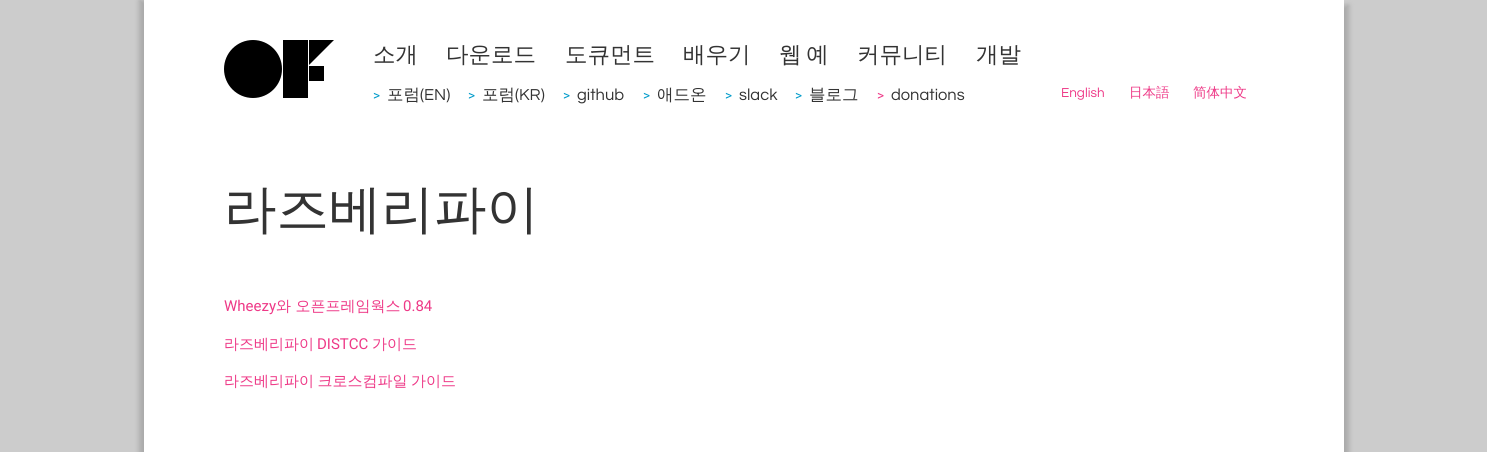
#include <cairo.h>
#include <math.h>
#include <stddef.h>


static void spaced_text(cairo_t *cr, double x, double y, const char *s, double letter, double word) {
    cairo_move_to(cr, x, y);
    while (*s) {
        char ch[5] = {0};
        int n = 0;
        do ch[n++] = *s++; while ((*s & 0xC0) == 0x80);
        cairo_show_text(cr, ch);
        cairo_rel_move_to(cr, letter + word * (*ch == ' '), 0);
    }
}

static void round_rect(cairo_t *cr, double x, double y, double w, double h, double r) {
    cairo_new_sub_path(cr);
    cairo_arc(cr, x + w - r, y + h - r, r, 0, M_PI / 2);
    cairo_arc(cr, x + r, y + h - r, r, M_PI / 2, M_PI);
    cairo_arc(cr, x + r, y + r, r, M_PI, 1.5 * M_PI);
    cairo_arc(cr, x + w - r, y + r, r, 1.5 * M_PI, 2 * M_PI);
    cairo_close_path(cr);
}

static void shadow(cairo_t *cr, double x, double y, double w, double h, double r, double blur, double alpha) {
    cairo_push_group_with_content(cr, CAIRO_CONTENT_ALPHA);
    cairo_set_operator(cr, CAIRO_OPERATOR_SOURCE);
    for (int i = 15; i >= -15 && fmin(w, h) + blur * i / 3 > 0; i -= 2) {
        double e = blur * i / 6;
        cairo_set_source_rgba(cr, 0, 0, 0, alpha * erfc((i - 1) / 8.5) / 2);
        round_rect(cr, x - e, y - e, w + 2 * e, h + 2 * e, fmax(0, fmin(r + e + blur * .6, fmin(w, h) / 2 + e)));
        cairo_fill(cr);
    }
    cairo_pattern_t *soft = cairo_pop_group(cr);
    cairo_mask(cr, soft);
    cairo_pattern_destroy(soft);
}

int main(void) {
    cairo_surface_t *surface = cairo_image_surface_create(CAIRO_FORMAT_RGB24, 1487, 452);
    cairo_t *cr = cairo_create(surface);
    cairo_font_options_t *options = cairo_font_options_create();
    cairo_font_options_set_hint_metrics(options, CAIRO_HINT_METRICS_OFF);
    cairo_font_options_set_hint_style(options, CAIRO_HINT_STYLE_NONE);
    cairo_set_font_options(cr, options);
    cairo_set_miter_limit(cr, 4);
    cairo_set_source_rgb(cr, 0.8, 0.8, 0.8);
    cairo_paint(cr);
    cairo_set_source_rgb(cr, 0.667, 0.667, 0.667);
    shadow(cr, 139, 0, 1200, 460, 0, 2.5, 1);
    shadow(cr, 149, 5, 1200, 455, 0, 2.5, 1);
    cairo_set_source_rgb(cr, 1, 1, 1);
    cairo_rectangle(cr, 144, 0, 1200, 452);
    cairo_fill(cr);
    cairo_set_source_rgb(cr, 0, 0, 0);
    cairo_set_fill_rule(cr, CAIRO_FILL_RULE_EVEN_ODD);
    cairo_new_path(cr);
    cairo_move_to(cr, 282, 69);
    cairo_curve_to(cr, 282, 53, 269, 40, 253, 40);
    cairo_curve_to(cr, 237, 40, 224, 53, 224, 69);
    cairo_curve_to(cr, 224, 85, 237, 98, 253, 98);
    cairo_curve_to(cr, 269, 98, 282, 85, 282, 69);
    cairo_close_path(cr);
    cairo_fill(cr);
    cairo_rectangle(cr, 283, 40, 25, 58);
    cairo_fill(cr);
    cairo_new_path(cr);
    cairo_move_to(cr, 309, 40);
    cairo_line_to(cr, 334, 40);
    cairo_line_to(cr, 309, 65);
    cairo_close_path(cr);
    cairo_fill(cr);
    cairo_rectangle(cr, 309, 66, 15, 15);
    cairo_fill(cr);
    cairo_select_font_face(cr, "WenQuanYi Zen Hei Medium", CAIRO_FONT_SLANT_NORMAL, CAIRO_FONT_WEIGHT_NORMAL);
    cairo_set_font_size(cr, 22.5);
    cairo_set_source_rgb(cr, 0.2, 0.2, 0.2);
    cairo_move_to(cr, 373, 62);
    cairo_show_text(cr, "소개");
    cairo_move_to(cr, 446, 62);
    cairo_show_text(cr, "다운로드");
    cairo_move_to(cr, 565, 62);
    cairo_show_text(cr, "도큐먼트");
    cairo_move_to(cr, 683, 62);
    cairo_show_text(cr, "배우기");
    spaced_text(cr, 779, 62, "웹 예", 0, -2);
    cairo_move_to(cr, 857, 62);
    cairo_show_text(cr, "커뮤니티");
    cairo_move_to(cr, 976, 62);
    cairo_show_text(cr, "개발");
    cairo_select_font_face(cr, "Roboto", CAIRO_FONT_SLANT_NORMAL, CAIRO_FONT_WEIGHT_NORMAL);
    cairo_set_font_size(cr, 13.5);
    cairo_set_source_rgb(cr, 0, 0.608, 0.792);
    cairo_move_to(cr, 373, 100);
    cairo_show_text(cr, ">");
    cairo_select_font_face(cr, "WenQuanYi Zen Hei Medium", CAIRO_FONT_SLANT_NORMAL, CAIRO_FONT_WEIGHT_NORMAL);
    cairo_set_font_size(cr, 16.5);
    cairo_set_source_rgb(cr, 0.2, 0.2, 0.2);
    cairo_move_to(cr, 387, 100);
    cairo_show_text(cr, "포럼");
    cairo_select_font_face(cr, "Questrial", CAIRO_FONT_SLANT_NORMAL, CAIRO_FONT_WEIGHT_NORMAL);
    cairo_move_to(cr, 420, 100);
    cairo_show_text(cr, "(EN)");
    cairo_select_font_face(cr, "Roboto", CAIRO_FONT_SLANT_NORMAL, CAIRO_FONT_WEIGHT_NORMAL);
    cairo_set_font_size(cr, 13.5);
    cairo_set_source_rgb(cr, 0, 0.608, 0.792);
    cairo_move_to(cr, 468, 100);
    cairo_show_text(cr, ">");
    cairo_select_font_face(cr, "WenQuanYi Zen Hei Medium", CAIRO_FONT_SLANT_NORMAL, CAIRO_FONT_WEIGHT_NORMAL);
    cairo_set_font_size(cr, 16.5);
    cairo_set_source_rgb(cr, 0.2, 0.2, 0.2);
    cairo_move_to(cr, 482, 100);
    cairo_show_text(cr, "포럼");
    cairo_select_font_face(cr, "Questrial", CAIRO_FONT_SLANT_NORMAL, CAIRO_FONT_WEIGHT_NORMAL);
    cairo_move_to(cr, 515, 100);
    cairo_show_text(cr, "(KR)");
    cairo_select_font_face(cr, "Roboto", CAIRO_FONT_SLANT_NORMAL, CAIRO_FONT_WEIGHT_NORMAL);
    cairo_set_font_size(cr, 13.5);
    cairo_set_source_rgb(cr, 0, 0.608, 0.792);
    cairo_move_to(cr, 563, 100);
    cairo_show_text(cr, ">");
    cairo_select_font_face(cr, "Questrial", CAIRO_FONT_SLANT_NORMAL, CAIRO_FONT_WEIGHT_NORMAL);
    cairo_set_font_size(cr, 16.5);
    cairo_set_source_rgb(cr, 0.2, 0.2, 0.2);
    cairo_move_to(cr, 577, 100);
    cairo_show_text(cr, "github");
    cairo_select_font_face(cr, "Roboto", CAIRO_FONT_SLANT_NORMAL, CAIRO_FONT_WEIGHT_NORMAL);
    cairo_set_font_size(cr, 13.5);
    cairo_set_source_rgb(cr, 0, 0.608, 0.792);
    cairo_move_to(cr, 643, 100);
    cairo_show_text(cr, ">");
    cairo_select_font_face(cr, "WenQuanYi Zen Hei Medium", CAIRO_FONT_SLANT_NORMAL, CAIRO_FONT_WEIGHT_NORMAL);
    cairo_set_font_size(cr, 16.5);
    cairo_set_source_rgb(cr, 0.2, 0.2, 0.2);
    cairo_move_to(cr, 657, 100);
    cairo_show_text(cr, "애드온");
    cairo_select_font_face(cr, "Roboto", CAIRO_FONT_SLANT_NORMAL, CAIRO_FONT_WEIGHT_NORMAL);
    cairo_set_font_size(cr, 13.5);
    cairo_set_source_rgb(cr, 0, 0.608, 0.792);
    cairo_move_to(cr, 725, 100);
    cairo_show_text(cr, ">");
    cairo_select_font_face(cr, "Questrial", CAIRO_FONT_SLANT_NORMAL, CAIRO_FONT_WEIGHT_NORMAL);
    cairo_set_font_size(cr, 16.5);
    cairo_set_source_rgb(cr, 0.2, 0.2, 0.2);
    cairo_move_to(cr, 739, 100);
    cairo_show_text(cr, "slack");
    cairo_select_font_face(cr, "Roboto", CAIRO_FONT_SLANT_NORMAL, CAIRO_FONT_WEIGHT_NORMAL);
    cairo_set_font_size(cr, 13.5);
    cairo_set_source_rgb(cr, 0, 0.608, 0.792);
    cairo_move_to(cr, 795, 100);
    cairo_show_text(cr, ">");
    cairo_select_font_face(cr, "WenQuanYi Zen Hei Medium", CAIRO_FONT_SLANT_NORMAL, CAIRO_FONT_WEIGHT_NORMAL);
    cairo_set_font_size(cr, 16.5);
    cairo_set_source_rgb(cr, 0.2, 0.2, 0.2);
    cairo_move_to(cr, 809, 100);
    cairo_show_text(cr, "블로그");
    cairo_select_font_face(cr, "Roboto", CAIRO_FONT_SLANT_NORMAL, CAIRO_FONT_WEIGHT_NORMAL);
    cairo_set_font_size(cr, 13.5);
    cairo_set_source_rgb(cr, 0.933, 0.224, 0.529);
    cairo_move_to(cr, 877, 100);
    cairo_show_text(cr, ">");
    cairo_select_font_face(cr, "Questrial", CAIRO_FONT_SLANT_NORMAL, CAIRO_FONT_WEIGHT_NORMAL);
    cairo_set_font_size(cr, 16.5);
    cairo_set_source_rgb(cr, 0.2, 0.2, 0.2);
    cairo_move_to(cr, 891, 100);
    cairo_show_text(cr, "donations");
    cairo_set_font_size(cr, 13.5);
    cairo_set_source_rgb(cr, 0.933, 0.224, 0.529);
    cairo_move_to(cr, 1061, 97);
    cairo_show_text(cr, "English");
    cairo_select_font_face(cr, "WenQuanYi Zen Hei Medium", CAIRO_FONT_SLANT_NORMAL, CAIRO_FONT_WEIGHT_NORMAL);
    cairo_move_to(cr, 1129, 97);
    cairo_show_text(cr, "日本語");
    cairo_move_to(cr, 1193, 97);
    cairo_show_text(cr, "简体中文");
    cairo_set_font_size(cr, 52.5);
    cairo_set_source_rgb(cr, 0.2, 0.2, 0.2);
    cairo_move_to(cr, 224, 227);
    cairo_show_text(cr, "라즈베리파이");
    cairo_select_font_face(cr, "Roboto", CAIRO_FONT_SLANT_NORMAL, CAIRO_FONT_WEIGHT_NORMAL);
    cairo_set_font_size(cr, 15);
    cairo_set_source_rgb(cr, 0.933, 0.224, 0.529);
    cairo_move_to(cr, 224, 311);
    cairo_show_text(cr, "Wheezy");
    cairo_select_font_face(cr, "WenQuanYi Zen Hei Medium", CAIRO_FONT_SLANT_NORMAL, CAIRO_FONT_WEIGHT_NORMAL);
    cairo_move_to(cr, 276, 311);
    cairo_show_text(cr, "와 오픈프레임웍스");
    cairo_select_font_face(cr, "Roboto", CAIRO_FONT_SLANT_NORMAL, CAIRO_FONT_WEIGHT_NORMAL);
    cairo_move_to(cr, 403, 311);
    cairo_show_text(cr, "0.84");
    cairo_select_font_face(cr, "WenQuanYi Zen Hei Medium", CAIRO_FONT_SLANT_NORMAL, CAIRO_FONT_WEIGHT_NORMAL);
    cairo_move_to(cr, 224, 349);
    cairo_show_text(cr, "라즈베리파이");
    cairo_select_font_face(cr, "Roboto", CAIRO_FONT_SLANT_NORMAL, CAIRO_FONT_WEIGHT_NORMAL);
    cairo_move_to(cr, 317, 349);
    cairo_show_text(cr, "DISTCC");
    cairo_select_font_face(cr, "WenQuanYi Zen Hei Medium", CAIRO_FONT_SLANT_NORMAL, CAIRO_FONT_WEIGHT_NORMAL);
    cairo_move_to(cr, 372, 349);
    cairo_show_text(cr, "가이드");
    spaced_text(cr, 224, 386, "라즈베리파이 크로스컴파일 가이드", 0, -1);
    cairo_surface_write_to_png(surface, "page.png");
    cairo_font_options_destroy(options);
    cairo_destroy(cr);
    cairo_surface_destroy(surface);
    return 0;
}
